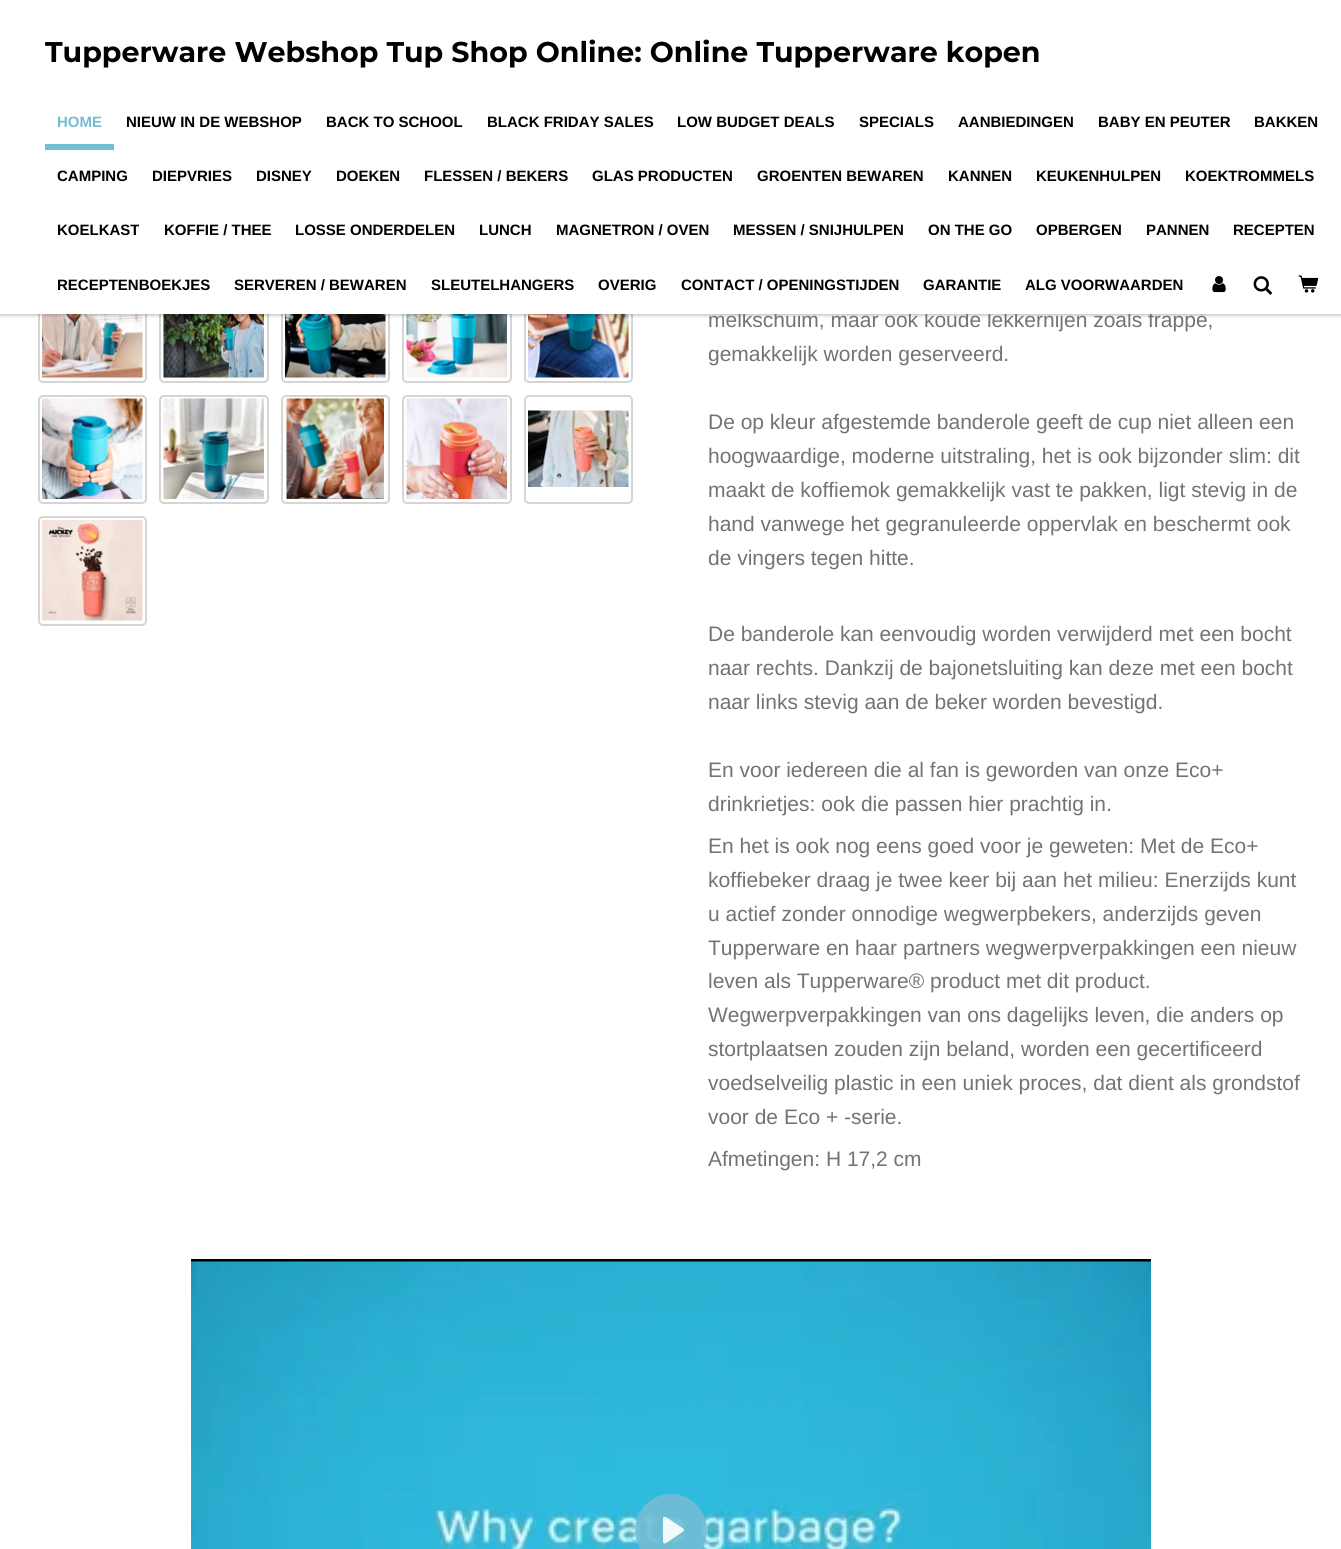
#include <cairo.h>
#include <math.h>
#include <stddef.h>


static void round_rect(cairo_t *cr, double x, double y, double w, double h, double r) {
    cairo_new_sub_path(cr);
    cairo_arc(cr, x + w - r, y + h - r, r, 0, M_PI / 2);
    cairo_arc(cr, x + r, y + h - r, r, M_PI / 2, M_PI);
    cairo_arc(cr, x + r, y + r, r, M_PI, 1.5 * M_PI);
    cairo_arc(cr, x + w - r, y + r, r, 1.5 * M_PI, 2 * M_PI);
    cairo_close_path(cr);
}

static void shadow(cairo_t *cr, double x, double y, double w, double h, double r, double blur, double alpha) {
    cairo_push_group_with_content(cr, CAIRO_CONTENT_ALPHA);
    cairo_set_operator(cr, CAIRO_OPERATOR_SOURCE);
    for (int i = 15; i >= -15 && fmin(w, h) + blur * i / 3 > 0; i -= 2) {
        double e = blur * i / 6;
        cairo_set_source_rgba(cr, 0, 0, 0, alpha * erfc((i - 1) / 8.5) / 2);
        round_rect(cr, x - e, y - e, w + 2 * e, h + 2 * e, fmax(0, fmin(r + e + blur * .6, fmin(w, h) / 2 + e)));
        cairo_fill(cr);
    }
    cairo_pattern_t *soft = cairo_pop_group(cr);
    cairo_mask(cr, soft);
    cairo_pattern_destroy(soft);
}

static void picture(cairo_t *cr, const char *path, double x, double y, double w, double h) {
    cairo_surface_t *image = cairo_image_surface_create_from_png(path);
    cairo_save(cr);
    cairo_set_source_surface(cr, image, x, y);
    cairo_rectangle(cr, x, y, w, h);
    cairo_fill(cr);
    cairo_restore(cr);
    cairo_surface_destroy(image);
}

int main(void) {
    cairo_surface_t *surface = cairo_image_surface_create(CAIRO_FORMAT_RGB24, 1341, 1549);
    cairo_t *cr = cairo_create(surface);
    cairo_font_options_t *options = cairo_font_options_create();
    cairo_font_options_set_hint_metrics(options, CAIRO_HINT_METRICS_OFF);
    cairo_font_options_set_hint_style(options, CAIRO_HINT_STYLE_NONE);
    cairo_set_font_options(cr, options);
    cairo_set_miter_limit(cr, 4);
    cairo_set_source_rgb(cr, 1, 1, 1);
    cairo_paint(cr);
    round_rect(cr, 39, 274, 107, 108, 4);
    cairo_set_source_rgb(cr, 0.835, 0.835, 0.835);
    cairo_stroke(cr);
    picture(cr, "img4.png", 42, 314, 101, 64);
    round_rect(cr, 160, 274, 108, 108, 4);
    cairo_stroke(cr);
    picture(cr, "img5.png", 163, 314, 101, 64);
    round_rect(cr, 282, 274, 107, 108, 4);
    cairo_stroke(cr);
    picture(cr, "img6.png", 285, 314, 101, 64);
    round_rect(cr, 403, 274, 108, 108, 4);
    cairo_stroke(cr);
    picture(cr, "img7.png", 406, 314, 101, 64);
    round_rect(cr, 525, 274, 107, 108, 4);
    cairo_stroke(cr);
    picture(cr, "img8.png", 528, 314, 101, 64);
    cairo_set_source_rgb(cr, 0, 0, 0);
    shadow(cr, 0, 2, 1341, 313, 0, 2, 0.3);
    cairo_select_font_face(cr, "Liberation Sans", CAIRO_FONT_SLANT_NORMAL, CAIRO_FONT_WEIGHT_NORMAL);
    cairo_set_font_size(cr, 21);
    cairo_set_source_rgb(cr, 0.451, 0.451, 0.451);
    cairo_move_to(cr, 708, 327);
    cairo_show_text(cr, "melkschuim, maar ook koude lekkernijen zoals frappé,");
    cairo_set_source_rgb(cr, 1, 1, 1);
    cairo_rectangle(cr, 0, 0, 1341, 314);
    cairo_fill(cr);
    cairo_select_font_face(cr, "Montserrat", CAIRO_FONT_SLANT_NORMAL, CAIRO_FONT_WEIGHT_BOLD);
    cairo_set_font_size(cr, 28.5);
    cairo_set_source_rgb(cr, 0, 0, 0);
    cairo_move_to(cr, 45, 62);
    cairo_show_text(cr, "Tupperware Webshop Tup Shop Online: Online Tupperware kopen");
    cairo_set_source_rgb(cr, 0.451, 0.741, 0.835);
    cairo_rectangle(cr, 45, 144, 69, 6);
    cairo_fill(cr);
    cairo_select_font_face(cr, "Liberation Sans", CAIRO_FONT_SLANT_NORMAL, CAIRO_FONT_WEIGHT_BOLD);
    cairo_set_font_size(cr, 15);
    cairo_move_to(cr, 57, 127);
    cairo_show_text(cr, "HOME");
    cairo_set_source_rgb(cr, 0, 0, 0);
    cairo_move_to(cr, 126, 127);
    cairo_show_text(cr, "NIEUW IN DE WEBSHOP");
    cairo_move_to(cr, 326, 127);
    cairo_show_text(cr, "BACK TO SCHOOL");
    cairo_move_to(cr, 487, 127);
    cairo_show_text(cr, "BLACK FRIDAY SALES");
    cairo_move_to(cr, 677, 127);
    cairo_show_text(cr, "LOW BUDGET DEALS");
    cairo_move_to(cr, 859, 127);
    cairo_show_text(cr, "SPECIALS");
    cairo_move_to(cr, 958, 127);
    cairo_show_text(cr, "AANBIEDINGEN");
    cairo_move_to(cr, 1098, 127);
    cairo_show_text(cr, "BABY EN PEUTER");
    cairo_move_to(cr, 1254, 127);
    cairo_show_text(cr, "BAKKEN");
    cairo_move_to(cr, 57, 181);
    cairo_show_text(cr, "CAMPING");
    cairo_move_to(cr, 152, 181);
    cairo_show_text(cr, "DIEPVRIES");
    cairo_move_to(cr, 256, 181);
    cairo_show_text(cr, "DISNEY");
    cairo_move_to(cr, 336, 181);
    cairo_show_text(cr, "DOEKEN");
    cairo_move_to(cr, 424, 181);
    cairo_show_text(cr, "FLESSEN / BEKERS");
    cairo_move_to(cr, 592, 181);
    cairo_show_text(cr, "GLAS PRODUCTEN");
    cairo_move_to(cr, 757, 181);
    cairo_show_text(cr, "GROENTEN BEWAREN");
    cairo_move_to(cr, 948, 181);
    cairo_show_text(cr, "KANNEN");
    cairo_move_to(cr, 1036, 181);
    cairo_show_text(cr, "KEUKENHULPEN");
    cairo_move_to(cr, 1185, 181);
    cairo_show_text(cr, "KOEKTROMMELS");
    cairo_move_to(cr, 57, 235);
    cairo_show_text(cr, "KOELKAST");
    cairo_move_to(cr, 164, 235);
    cairo_show_text(cr, "KOFFIE / THEE");
    cairo_move_to(cr, 295, 235);
    cairo_show_text(cr, "LOSSE ONDERDELEN");
    cairo_move_to(cr, 479, 235);
    cairo_show_text(cr, "LUNCH");
    cairo_move_to(cr, 556, 235);
    cairo_show_text(cr, "MAGNETRON / OVEN");
    cairo_move_to(cr, 733, 235);
    cairo_show_text(cr, "MESSEN / SNIJHULPEN");
    cairo_move_to(cr, 928, 235);
    cairo_show_text(cr, "ON THE GO");
    cairo_move_to(cr, 1036, 235);
    cairo_show_text(cr, "OPBERGEN");
    cairo_move_to(cr, 1146, 235);
    cairo_show_text(cr, "PANNEN");
    cairo_move_to(cr, 1233, 235);
    cairo_show_text(cr, "RECEPTEN");
    cairo_move_to(cr, 57, 290);
    cairo_show_text(cr, "RECEPTENBOEKJES");
    cairo_move_to(cr, 234, 290);
    cairo_show_text(cr, "SERVEREN / BEWAREN");
    cairo_move_to(cr, 431, 290);
    cairo_show_text(cr, "SLEUTELHANGERS");
    cairo_move_to(cr, 598, 290);
    cairo_show_text(cr, "OVERIG");
    cairo_move_to(cr, 681, 290);
    cairo_show_text(cr, "CONTACT / OPENINGSTIJDEN");
    cairo_move_to(cr, 923, 290);
    cairo_show_text(cr, "GARANTIE");
    cairo_move_to(cr, 1025, 290);
    cairo_show_text(cr, "ALG VOORWAARDEN");
    picture(cr, "img1.png", 1212, 276, 14, 17);
    picture(cr, "img2.png", 1253, 276, 20, 19);
    picture(cr, "img3.png", 1298, 275, 21, 18);
    round_rect(cr, 39, 396, 107, 107, 4);
    cairo_set_source_rgb(cr, 0.835, 0.835, 0.835);
    cairo_stroke(cr);
    picture(cr, "img9.png", 42, 398, 101, 101);
    round_rect(cr, 160, 396, 108, 107, 4);
    cairo_stroke(cr);
    picture(cr, "img10.png", 163, 398, 101, 101);
    round_rect(cr, 282, 396, 107, 107, 4);
    cairo_stroke(cr);
    picture(cr, "img11.png", 286, 398, 98, 101);
    round_rect(cr, 403, 396, 108, 107, 4);
    cairo_stroke(cr);
    picture(cr, "img12.png", 406, 398, 101, 101);
    round_rect(cr, 525, 396, 107, 107, 4);
    cairo_stroke(cr);
    picture(cr, "img13.png", 528, 410, 101, 77);
    round_rect(cr, 39, 517, 107, 108, 4);
    cairo_stroke(cr);
    picture(cr, "img14.png", 42, 520, 101, 101);
    cairo_select_font_face(cr, "Liberation Sans", CAIRO_FONT_SLANT_NORMAL, CAIRO_FONT_WEIGHT_NORMAL);
    cairo_set_font_size(cr, 21);
    cairo_set_source_rgb(cr, 0.451, 0.451, 0.451);
    cairo_move_to(cr, 708, 361);
    cairo_show_text(cr, "gemakkelijk worden geserveerd.");
    cairo_move_to(cr, 708, 429);
    cairo_show_text(cr, "De op kleur afgestemde banderole geeft de cup niet alleen een");
    cairo_move_to(cr, 708, 463);
    cairo_show_text(cr, "hoogwaardige, moderne uitstraling, het is ook bijzonder slim: dit");
    cairo_move_to(cr, 708, 497);
    cairo_show_text(cr, "maakt de koffiemok gemakkelijk vast te pakken, ligt stevig in de");
    cairo_move_to(cr, 708, 531);
    cairo_show_text(cr, "hand vanwege het gegranuleerde oppervlak en beschermt ook");
    cairo_move_to(cr, 708, 565);
    cairo_show_text(cr, "de vingers tegen hitte.");
    cairo_move_to(cr, 708, 641);
    cairo_show_text(cr, "De banderole kan eenvoudig worden verwijderd met een bocht");
    cairo_move_to(cr, 708, 675);
    cairo_show_text(cr, "naar rechts. Dankzij de bajonetsluiting kan deze met een bocht");
    cairo_move_to(cr, 708, 709);
    cairo_show_text(cr, "naar links stevig aan de beker worden bevestigd.");
    cairo_move_to(cr, 708, 777);
    cairo_show_text(cr, "En voor iedereen die al fan is geworden van onze Eco+");
    cairo_move_to(cr, 708, 811);
    cairo_show_text(cr, "drinkrietjes: ook die passen hier prachtig in.");
    cairo_move_to(cr, 708, 853);
    cairo_show_text(cr, "En het is ook nog eens goed voor je geweten: Met de Eco+");
    cairo_move_to(cr, 708, 887);
    cairo_show_text(cr, "koffiebeker draag je twee keer bij aan het milieu: Enerzijds kunt");
    cairo_move_to(cr, 708, 921);
    cairo_show_text(cr, "u actief zonder onnodige wegwerpbekers, anderzijds geven");
    cairo_move_to(cr, 708, 955);
    cairo_show_text(cr, "Tupperware en haar partners wegwerpverpakkingen een nieuw");
    cairo_move_to(cr, 708, 988);
    cairo_show_text(cr, "leven als Tupperware® product met dit product.");
    cairo_move_to(cr, 708, 1022);
    cairo_show_text(cr, "Wegwerpverpakkingen van ons dagelijks leven, die anders op");
    cairo_move_to(cr, 708, 1056);
    cairo_show_text(cr, "stortplaatsen zouden zijn beland, worden een gecertificeerd");
    cairo_move_to(cr, 708, 1090);
    cairo_show_text(cr, "voedselveilig plastic in een uniek proces, dat dient als grondstof");
    cairo_move_to(cr, 708, 1124);
    cairo_show_text(cr, "voor de Eco + -serie.");
    cairo_move_to(cr, 708, 1166);
    cairo_show_text(cr, "Afmetingen: H 17,2 cm");
    picture(cr, "img15.png", 191, 1259, 960, 290);
    cairo_set_source_rgba(cr, 0.451, 0.741, 0.835, 0.9);
    cairo_arc(cr, 671, 1530, 36, 0, 2 * M_PI);
    cairo_fill(cr);
    picture(cr, "img16.png", 663, 1517, 21, 27);
    cairo_surface_write_to_png(surface, "page.png");
    cairo_font_options_destroy(options);
    cairo_destroy(cr);
    cairo_surface_destroy(surface);
    return 0;
}
